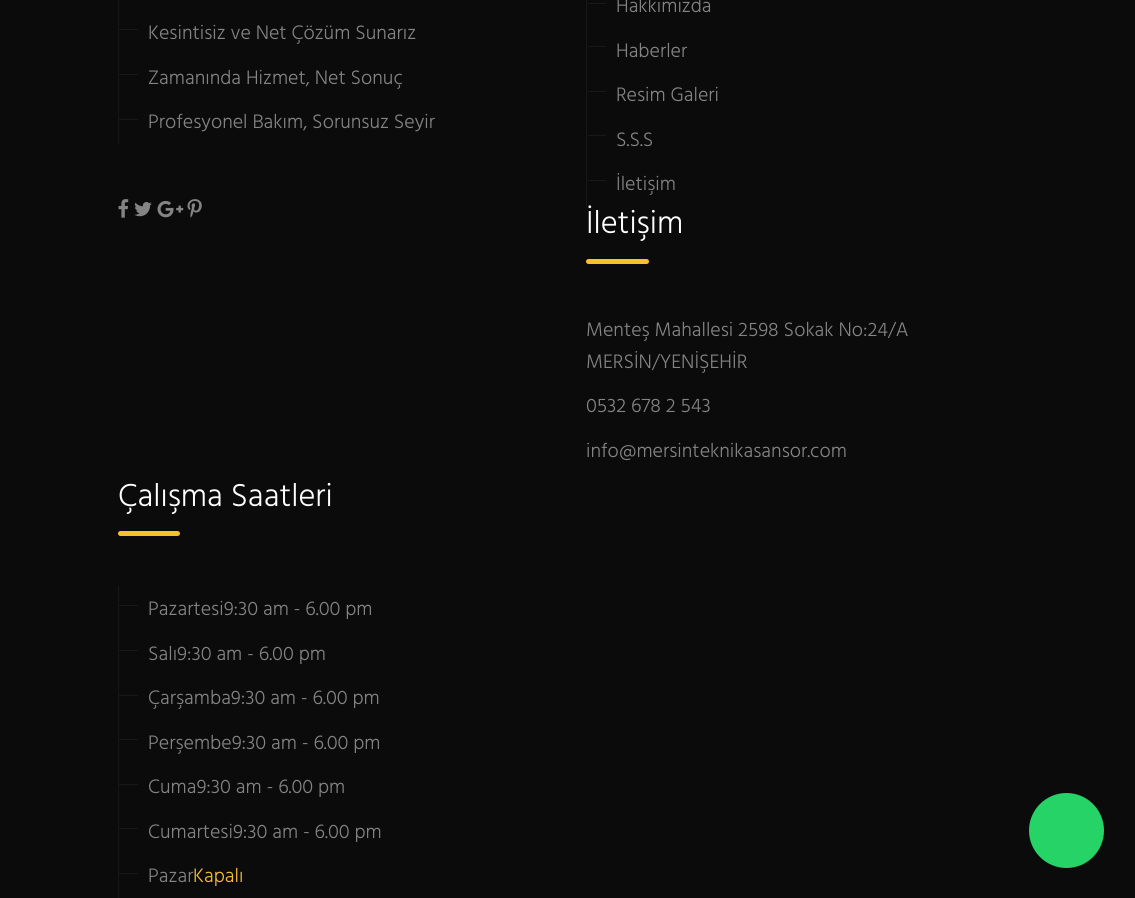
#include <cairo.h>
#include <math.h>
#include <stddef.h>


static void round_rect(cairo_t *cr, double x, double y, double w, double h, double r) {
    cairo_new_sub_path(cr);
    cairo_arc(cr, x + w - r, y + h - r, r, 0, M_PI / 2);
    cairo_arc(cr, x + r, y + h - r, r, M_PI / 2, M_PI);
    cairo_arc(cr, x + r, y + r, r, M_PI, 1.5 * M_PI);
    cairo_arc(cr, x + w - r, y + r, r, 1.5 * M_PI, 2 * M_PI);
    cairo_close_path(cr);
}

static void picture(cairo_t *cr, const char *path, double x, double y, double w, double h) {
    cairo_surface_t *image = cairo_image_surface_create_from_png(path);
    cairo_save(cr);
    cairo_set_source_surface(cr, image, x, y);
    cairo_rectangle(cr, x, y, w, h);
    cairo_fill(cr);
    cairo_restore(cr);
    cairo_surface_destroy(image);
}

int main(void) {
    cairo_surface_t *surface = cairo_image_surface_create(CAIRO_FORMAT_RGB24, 1135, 898);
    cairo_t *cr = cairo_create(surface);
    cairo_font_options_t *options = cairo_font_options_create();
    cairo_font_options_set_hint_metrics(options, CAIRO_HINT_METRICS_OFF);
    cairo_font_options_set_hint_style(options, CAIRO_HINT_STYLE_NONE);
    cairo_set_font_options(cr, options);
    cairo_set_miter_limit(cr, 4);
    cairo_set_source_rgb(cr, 0.043, 0.043, 0.043);
    cairo_paint(cr);
    cairo_set_source_rgb(cr, 0.094, 0.094, 0.094);
    cairo_rectangle(cr, 118, 0, 1, 144);
    cairo_fill(cr);
    cairo_rectangle(cr, 119, 29, 19, 1);
    cairo_fill(cr);
    cairo_select_font_face(cr, "Hind Vadodara Light", CAIRO_FONT_SLANT_NORMAL, CAIRO_FONT_WEIGHT_NORMAL);
    cairo_set_font_size(cr, 20);
    cairo_set_source_rgb(cr, 0.518, 0.518, 0.518);
    cairo_move_to(cr, 148, 39);
    cairo_show_text(cr, "Kesintisiz ve Net Çözüm Sunarız");
    cairo_set_source_rgb(cr, 0.094, 0.094, 0.094);
    cairo_rectangle(cr, 119, 74, 19, 1);
    cairo_fill(cr);
    cairo_set_source_rgb(cr, 0.518, 0.518, 0.518);
    cairo_move_to(cr, 148, 84);
    cairo_show_text(cr, "Zamanında Hizmet, Net Sonuç");
    cairo_set_source_rgb(cr, 0.094, 0.094, 0.094);
    cairo_rectangle(cr, 119, 119, 19, 1);
    cairo_fill(cr);
    cairo_set_source_rgb(cr, 0.518, 0.518, 0.518);
    cairo_move_to(cr, 148, 128);
    cairo_show_text(cr, "Profesyonel Bakım, Sorunsuz Seyir");
    picture(cr, "img1.png", 118, 199, 11, 19);
    picture(cr, "img2.png", 134, 202, 18, 15);
    picture(cr, "img3.png", 157, 200, 27, 18);
    picture(cr, "img4.png", 187, 199, 15, 19);
    cairo_set_source_rgb(cr, 0.094, 0.094, 0.094);
    cairo_rectangle(cr, 586, 0, 1, 206);
    cairo_fill(cr);
    cairo_rectangle(cr, 588, 3, 18, 1);
    cairo_fill(cr);
    cairo_set_source_rgb(cr, 0.518, 0.518, 0.518);
    cairo_move_to(cr, 616, 12);
    cairo_show_text(cr, "Hakkımızda");
    cairo_set_source_rgb(cr, 0.094, 0.094, 0.094);
    cairo_rectangle(cr, 588, 46, 18, 1);
    cairo_fill(cr);
    cairo_set_source_rgb(cr, 0.518, 0.518, 0.518);
    cairo_move_to(cr, 616, 57);
    cairo_show_text(cr, "Haberler");
    cairo_set_source_rgb(cr, 0.094, 0.094, 0.094);
    cairo_rectangle(cr, 588, 91, 18, 1);
    cairo_fill(cr);
    cairo_set_source_rgb(cr, 0.518, 0.518, 0.518);
    cairo_move_to(cr, 616, 101);
    cairo_show_text(cr, "Resim Galeri");
    cairo_set_source_rgb(cr, 0.094, 0.094, 0.094);
    cairo_rectangle(cr, 588, 135, 18, 1);
    cairo_fill(cr);
    cairo_set_source_rgb(cr, 0.518, 0.518, 0.518);
    cairo_move_to(cr, 616, 146);
    cairo_show_text(cr, "S.S.S");
    cairo_set_source_rgb(cr, 0.094, 0.094, 0.094);
    cairo_rectangle(cr, 588, 180, 18, 1);
    cairo_fill(cr);
    cairo_set_source_rgb(cr, 0.518, 0.518, 0.518);
    cairo_move_to(cr, 616, 190);
    cairo_show_text(cr, "İletişim");
    cairo_select_font_face(cr, "Hind Light", CAIRO_FONT_SLANT_NORMAL, CAIRO_FONT_WEIGHT_NORMAL);
    cairo_set_font_size(cr, 32.5);
    cairo_set_source_rgb(cr, 1, 1, 1);
    cairo_move_to(cr, 586, 233);
    cairo_show_text(cr, "İletişim");
    cairo_set_source_rgb(cr, 0.969, 0.753, 0.176);
    round_rect(cr, 586, 259, 63, 5, 2.5);
    cairo_fill(cr);
    cairo_select_font_face(cr, "Hind Vadodara Light", CAIRO_FONT_SLANT_NORMAL, CAIRO_FONT_WEIGHT_NORMAL);
    cairo_set_font_size(cr, 20);
    cairo_set_source_rgb(cr, 0.518, 0.518, 0.518);
    cairo_move_to(cr, 586, 336);
    cairo_show_text(cr, "Menteş Mahallesi 2598 Sokak No:24/A");
    cairo_move_to(cr, 586, 368);
    cairo_show_text(cr, "MERSİN/YENİŞEHİR");
    cairo_move_to(cr, 586, 412);
    cairo_show_text(cr, "0532 678 2 543");
    cairo_move_to(cr, 586, 457);
    cairo_show_text(cr, "info@mersinteknikasansor.com");
    cairo_select_font_face(cr, "Hind Light", CAIRO_FONT_SLANT_NORMAL, CAIRO_FONT_WEIGHT_NORMAL);
    cairo_set_font_size(cr, 32.5);
    cairo_set_source_rgb(cr, 1, 1, 1);
    cairo_move_to(cr, 118, 506);
    cairo_show_text(cr, "Çalışma Saatleri");
    cairo_set_source_rgb(cr, 0.969, 0.753, 0.176);
    round_rect(cr, 118, 531, 62, 5, 2.5);
    cairo_fill(cr);
    cairo_set_source_rgb(cr, 0.094, 0.094, 0.094);
    cairo_rectangle(cr, 118, 586, 1, 312);
    cairo_fill(cr);
    cairo_rectangle(cr, 119, 605, 19, 1);
    cairo_fill(cr);
    cairo_select_font_face(cr, "Hind Vadodara Light", CAIRO_FONT_SLANT_NORMAL, CAIRO_FONT_WEIGHT_NORMAL);
    cairo_set_font_size(cr, 20);
    cairo_set_source_rgb(cr, 0.518, 0.518, 0.518);
    cairo_move_to(cr, 148, 615);
    cairo_show_text(cr, "Pazartesi9:30 am - 6.00 pm");
    cairo_set_source_rgb(cr, 0.094, 0.094, 0.094);
    cairo_rectangle(cr, 119, 650, 19, 1);
    cairo_fill(cr);
    cairo_set_source_rgb(cr, 0.518, 0.518, 0.518);
    cairo_move_to(cr, 148, 660);
    cairo_show_text(cr, "Salı9:30 am - 6.00 pm");
    cairo_set_source_rgb(cr, 0.094, 0.094, 0.094);
    cairo_rectangle(cr, 119, 695, 19, 1);
    cairo_fill(cr);
    cairo_set_source_rgb(cr, 0.518, 0.518, 0.518);
    cairo_move_to(cr, 148, 704);
    cairo_show_text(cr, "Çarşamba9:30 am - 6.00 pm");
    cairo_set_source_rgb(cr, 0.094, 0.094, 0.094);
    cairo_rectangle(cr, 119, 739, 19, 1);
    cairo_fill(cr);
    cairo_set_source_rgb(cr, 0.518, 0.518, 0.518);
    cairo_move_to(cr, 148, 749);
    cairo_show_text(cr, "Perşembe9:30 am - 6.00 pm");
    cairo_set_source_rgb(cr, 0.094, 0.094, 0.094);
    cairo_rectangle(cr, 119, 784, 19, 1);
    cairo_fill(cr);
    cairo_set_source_rgb(cr, 0.518, 0.518, 0.518);
    cairo_move_to(cr, 148, 793);
    cairo_show_text(cr, "Cuma9:30 am - 6.00 pm");
    cairo_set_source_rgb(cr, 0.094, 0.094, 0.094);
    cairo_rectangle(cr, 119, 828, 19, 1);
    cairo_fill(cr);
    cairo_set_source_rgb(cr, 0.518, 0.518, 0.518);
    cairo_move_to(cr, 148, 838);
    cairo_show_text(cr, "Cumartesi9:30 am - 6.00 pm");
    cairo_set_source_rgb(cr, 0.094, 0.094, 0.094);
    cairo_rectangle(cr, 119, 873, 19, 1);
    cairo_fill(cr);
    cairo_set_source_rgb(cr, 0.518, 0.518, 0.518);
    cairo_move_to(cr, 148, 882);
    cairo_show_text(cr, "Pazar");
    cairo_set_source_rgb(cr, 0.969, 0.753, 0.176);
    cairo_move_to(cr, 193, 882);
    cairo_show_text(cr, "Kapalı");
    cairo_set_source_rgb(cr, 0.145, 0.827, 0.4);
    cairo_new_path(cr);
    cairo_arc(cr, 1066.5, 830.5, 37.5, 0, 2 * M_PI);
    cairo_fill(cr);
    cairo_surface_write_to_png(surface, "page.png");
    cairo_font_options_destroy(options);
    cairo_destroy(cr);
    cairo_surface_destroy(surface);
    return 0;
}
